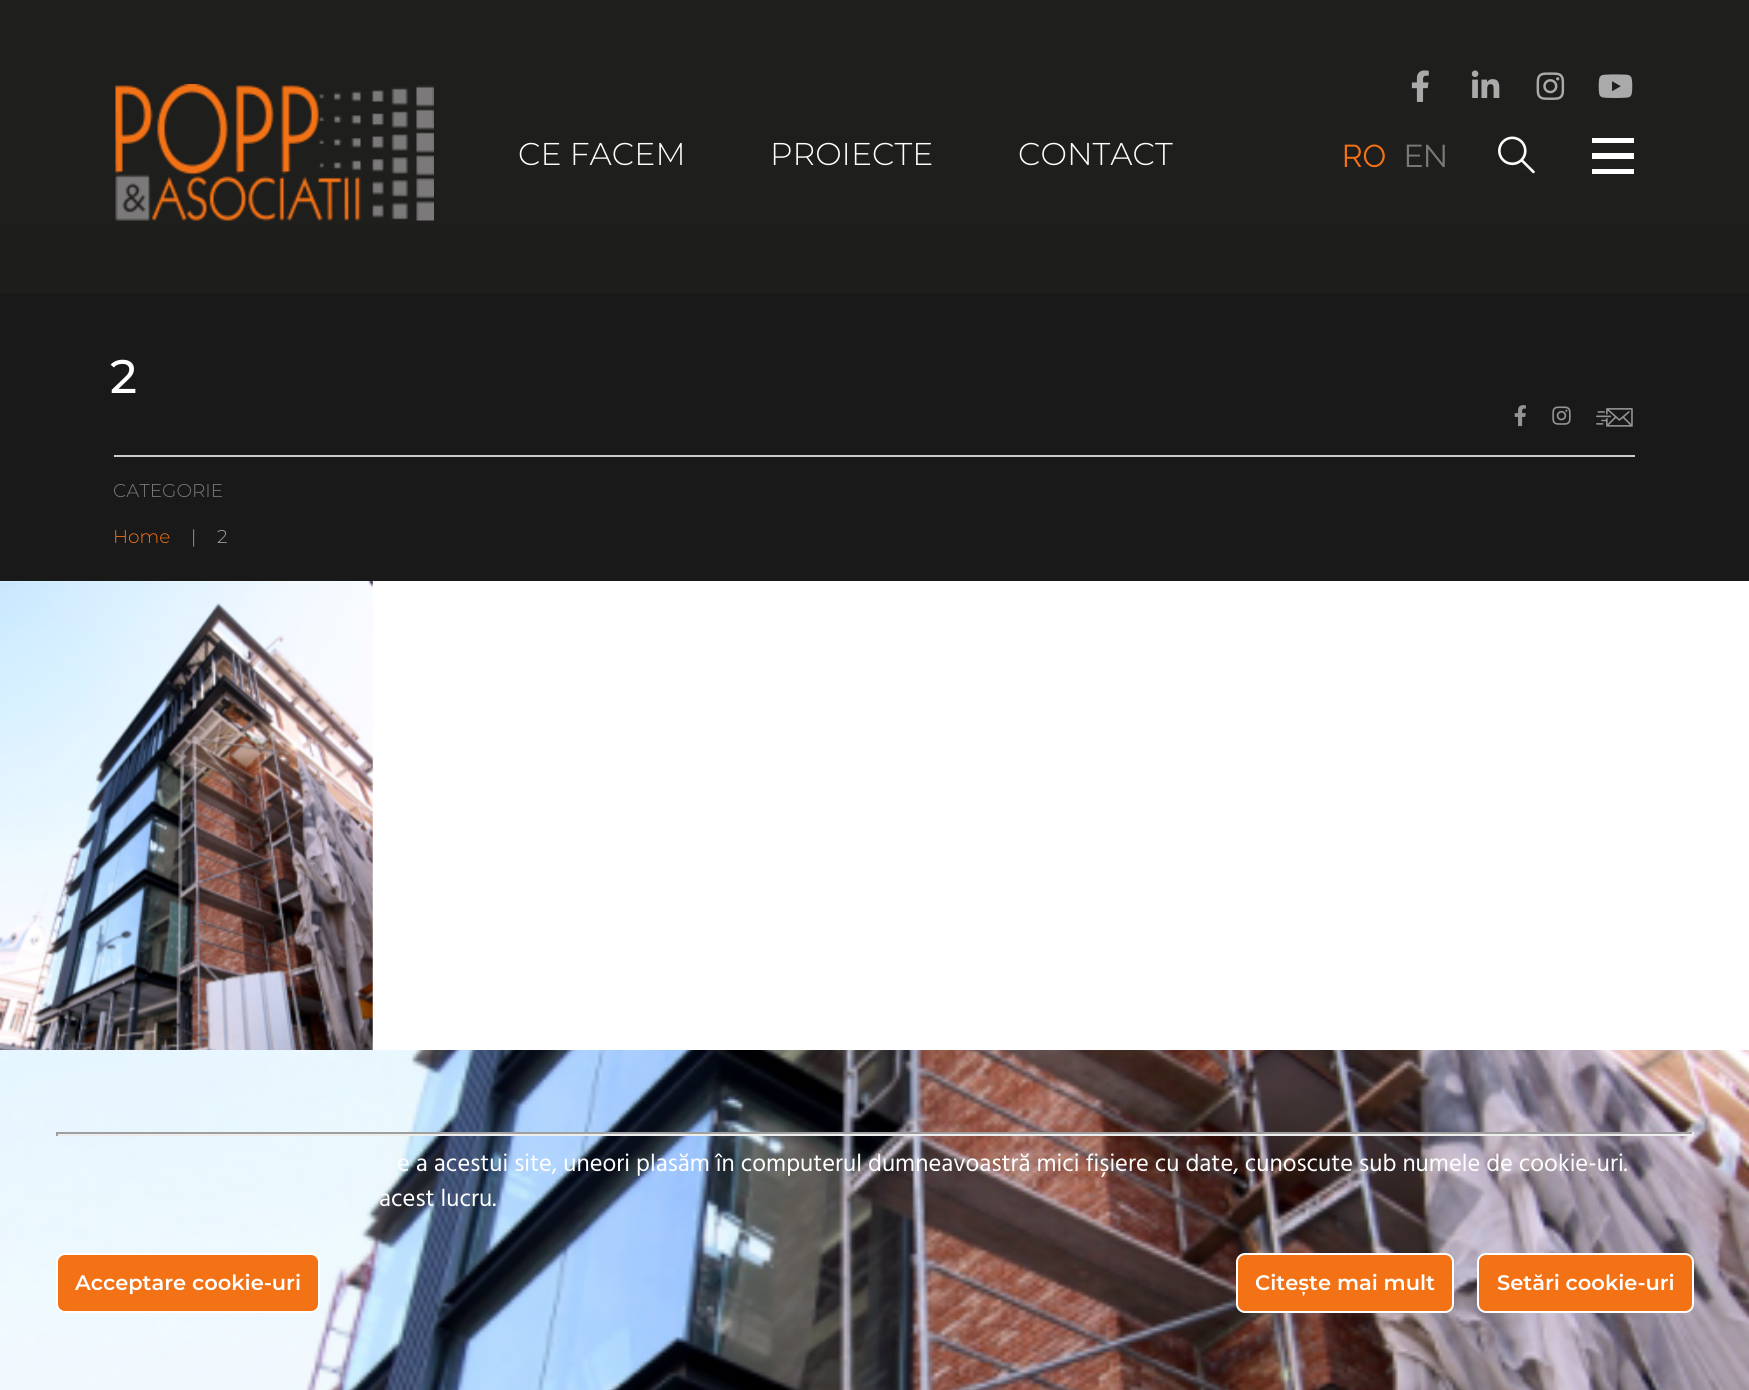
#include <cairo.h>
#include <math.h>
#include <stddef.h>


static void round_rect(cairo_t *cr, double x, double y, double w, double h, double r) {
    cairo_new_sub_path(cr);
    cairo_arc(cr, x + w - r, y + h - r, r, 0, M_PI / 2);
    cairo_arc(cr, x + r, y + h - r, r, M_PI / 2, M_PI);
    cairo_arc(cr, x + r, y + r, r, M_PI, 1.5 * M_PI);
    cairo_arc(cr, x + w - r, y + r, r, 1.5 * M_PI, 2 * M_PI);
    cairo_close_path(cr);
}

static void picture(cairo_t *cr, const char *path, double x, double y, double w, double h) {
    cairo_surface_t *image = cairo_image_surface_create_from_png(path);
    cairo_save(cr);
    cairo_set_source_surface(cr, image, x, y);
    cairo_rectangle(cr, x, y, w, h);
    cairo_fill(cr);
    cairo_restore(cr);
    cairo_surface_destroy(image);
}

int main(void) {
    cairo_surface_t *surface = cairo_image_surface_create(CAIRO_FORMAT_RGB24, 1749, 1390);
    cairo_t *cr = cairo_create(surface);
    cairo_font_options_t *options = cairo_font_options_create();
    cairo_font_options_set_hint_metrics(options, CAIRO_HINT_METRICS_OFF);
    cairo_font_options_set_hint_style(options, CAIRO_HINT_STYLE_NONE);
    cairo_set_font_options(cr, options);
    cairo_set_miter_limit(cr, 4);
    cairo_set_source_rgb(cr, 1, 1, 1);
    cairo_paint(cr);
    picture(cr, "img11.png", 0, 580, 373, 470);
    cairo_set_source_rgba(cr, 0, 0, 0, 0.9);
    cairo_rectangle(cr, 0, 0, 1749, 581);
    cairo_fill(cr);
    picture(cr, "img7.png", 0, 0, 1749, 293);
    picture(cr, "img1.png", 1411, 70, 18, 32);
    picture(cr, "img2.png", 1471, 70, 29, 28);
    picture(cr, "img3.png", 1536, 72, 29, 28);
    picture(cr, "img4.png", 1598, 74, 35, 24);
    picture(cr, "img5.png", 115, 84, 319, 137);
    cairo_select_font_face(cr, "Montserrat Light", CAIRO_FONT_SLANT_NORMAL, CAIRO_FONT_WEIGHT_NORMAL);
    cairo_set_font_size(cr, 31.5);
    cairo_set_source_rgb(cr, 1, 1, 1);
    cairo_move_to(cr, 518, 165);
    cairo_show_text(cr, "CE FACEM");
    cairo_move_to(cr, 770, 165);
    cairo_show_text(cr, "PROIECTE");
    cairo_move_to(cr, 1018, 165);
    cairo_show_text(cr, "CONTACT");
    cairo_select_font_face(cr, "Raleway", CAIRO_FONT_SLANT_NORMAL, CAIRO_FONT_WEIGHT_NORMAL);
    cairo_set_source_rgb(cr, 0.957, 0.447, 0.086);
    cairo_move_to(cr, 1342, 167);
    cairo_show_text(cr, "RO");
    cairo_set_source_rgb(cr, 0.475, 0.475, 0.475);
    cairo_move_to(cr, 1404, 167);
    cairo_show_text(cr, "EN");
    picture(cr, "img6.png", 1498, 136, 37, 38);
    cairo_set_source_rgb(cr, 1, 1, 1);
    cairo_new_path(cr);
    cairo_move_to(cr, 1592, 174);
    cairo_line_to(cr, 1634, 174);
    cairo_line_to(cr, 1634, 169);
    cairo_line_to(cr, 1592, 169);
    cairo_close_path(cr);
    cairo_move_to(cr, 1592, 159);
    cairo_line_to(cr, 1634, 159);
    cairo_line_to(cr, 1634, 153);
    cairo_line_to(cr, 1592, 153);
    cairo_close_path(cr);
    cairo_move_to(cr, 1592, 138);
    cairo_line_to(cr, 1592, 143);
    cairo_line_to(cr, 1634, 143);
    cairo_line_to(cr, 1634, 138);
    cairo_close_path(cr);
    cairo_fill(cr);
    cairo_set_source_rgb(cr, 0.8, 0.8, 0.8);
    cairo_rectangle(cr, 114, 455, 1521, 2);
    cairo_fill(cr);
    cairo_select_font_face(cr, "Montserrat Medium", CAIRO_FONT_SLANT_NORMAL, CAIRO_FONT_WEIGHT_NORMAL);
    cairo_set_font_size(cr, 47);
    cairo_set_source_rgb(cr, 1, 1, 1);
    cairo_move_to(cr, 110, 393);
    cairo_show_text(cr, "2");
    picture(cr, "img8.png", 1514, 405, 12, 22);
    picture(cr, "img9.png", 1552, 406, 19, 19);
    picture(cr, "img10.png", 1596, 408, 37, 19);
    cairo_select_font_face(cr, "Montserrat Light", CAIRO_FONT_SLANT_NORMAL, CAIRO_FONT_WEIGHT_NORMAL);
    cairo_set_font_size(cr, 18.5);
    cairo_set_source_rgb(cr, 0.475, 0.475, 0.475);
    cairo_move_to(cr, 113, 497);
    cairo_show_text(cr, "CATEGORIE");
    cairo_set_source_rgb(cr, 0.957, 0.447, 0.086);
    cairo_move_to(cr, 113, 543);
    cairo_show_text(cr, "Home");
    cairo_set_source_rgb(cr, 0.631, 0.631, 0.631);
    cairo_move_to(cr, 191, 543);
    cairo_show_text(cr, "|");
    cairo_move_to(cr, 217, 543);
    cairo_show_text(cr, "2");
    picture(cr, "img12.png", 0, 1050, 1749, 340);
    cairo_set_source_rgb(cr, 0.624, 0.624, 0.624);
    cairo_rectangle(cr, 56, 1132, 1638, 2);
    cairo_fill(cr);
    cairo_set_source_rgb(cr, 0.933, 0.933, 0.933);
    cairo_rectangle(cr, 1692, 1132, 2, 4);
    cairo_fill(cr);
    cairo_rectangle(cr, 56, 1134, 1638, 2);
    cairo_fill(cr);
    cairo_set_source_rgb(cr, 0.624, 0.624, 0.624);
    cairo_rectangle(cr, 56, 1132, 2, 4);
    cairo_fill(cr);
    cairo_select_font_face(cr, "Hind", CAIRO_FONT_SLANT_NORMAL, CAIRO_FONT_WEIGHT_NORMAL);
    cairo_set_font_size(cr, 24.5);
    cairo_set_source_rgb(cr, 1, 1, 1);
    cairo_move_to(cr, 397, 1171);
    cairo_show_text(cr, "e a acestui site, uneori plasăm în computerul dumneavoastră mici fișiere cu date, cunoscute sub numele de cookie-uri.");
    cairo_move_to(cr, 379, 1206);
    cairo_show_text(cr, "acest lucru.");
    cairo_set_source_rgb(cr, 0.957, 0.447, 0.086);
    round_rect(cr, 57, 1254, 262, 58, 8);
    cairo_fill_preserve(cr);
    cairo_set_source_rgb(cr, 1, 1, 1);
    cairo_stroke(cr);
    cairo_select_font_face(cr, "Montserrat SemiBold", CAIRO_FONT_SLANT_NORMAL, CAIRO_FONT_WEIGHT_NORMAL);
    cairo_set_font_size(cr, 21);
    cairo_move_to(cr, 75, 1290);
    cairo_show_text(cr, "Acceptare cookie-uri");
    cairo_set_source_rgb(cr, 0.957, 0.447, 0.086);
    round_rect(cr, 1237, 1254, 216, 58, 8);
    cairo_fill_preserve(cr);
    cairo_set_source_rgb(cr, 1, 1, 1);
    cairo_stroke(cr);
    cairo_move_to(cr, 1255, 1290);
    cairo_show_text(cr, "Citește mai mult");
    cairo_set_source_rgb(cr, 0.957, 0.447, 0.086);
    round_rect(cr, 1478, 1254, 215, 58, 8);
    cairo_fill_preserve(cr);
    cairo_set_source_rgb(cr, 1, 1, 1);
    cairo_stroke(cr);
    cairo_move_to(cr, 1497, 1290);
    cairo_show_text(cr, "Setări cookie-uri");
    cairo_surface_write_to_png(surface, "page.png");
    cairo_font_options_destroy(options);
    cairo_destroy(cr);
    cairo_surface_destroy(surface);
    return 0;
}
